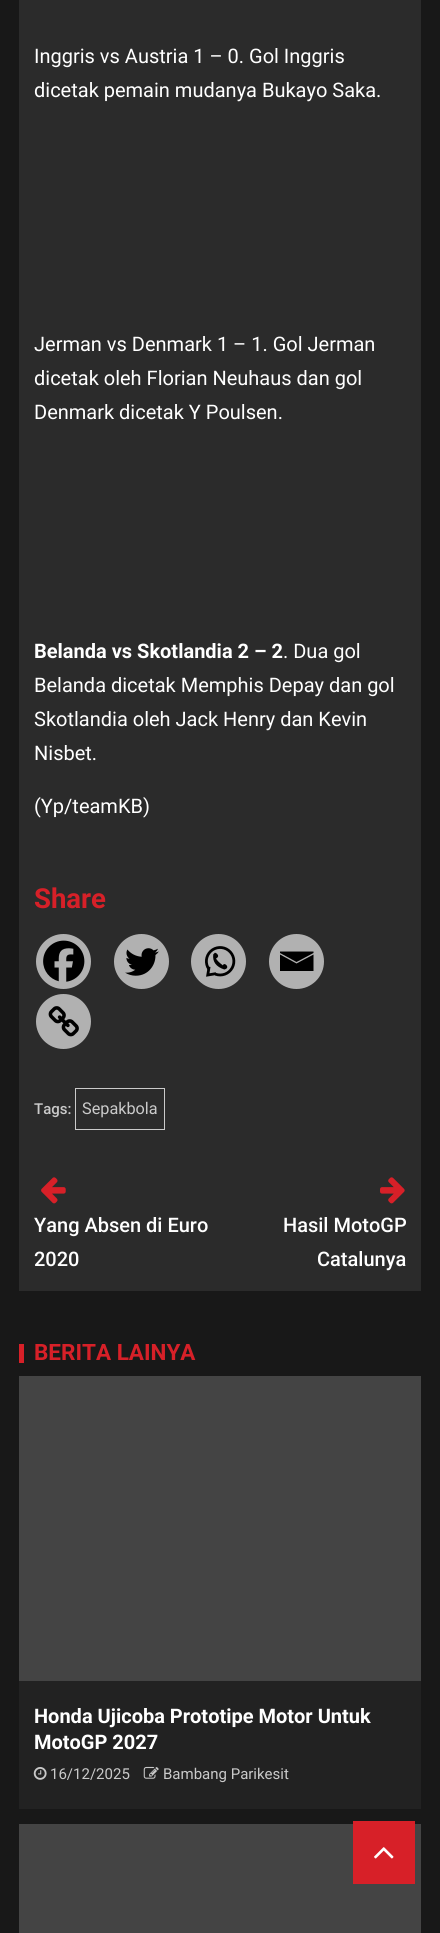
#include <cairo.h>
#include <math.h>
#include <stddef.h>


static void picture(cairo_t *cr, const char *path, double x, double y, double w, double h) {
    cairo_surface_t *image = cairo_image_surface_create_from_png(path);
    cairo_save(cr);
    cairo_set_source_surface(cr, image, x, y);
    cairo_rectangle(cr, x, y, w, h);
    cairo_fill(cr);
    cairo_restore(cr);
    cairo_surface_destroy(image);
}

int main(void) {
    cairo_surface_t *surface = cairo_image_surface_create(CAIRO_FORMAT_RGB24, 440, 1933);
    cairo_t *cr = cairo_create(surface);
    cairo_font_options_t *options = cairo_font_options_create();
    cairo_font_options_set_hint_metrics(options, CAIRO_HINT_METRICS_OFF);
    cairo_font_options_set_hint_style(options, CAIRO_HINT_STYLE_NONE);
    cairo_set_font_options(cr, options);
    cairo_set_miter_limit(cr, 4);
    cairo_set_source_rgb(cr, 0.094, 0.094, 0.094);
    cairo_paint(cr);
    cairo_set_source_rgb(cr, 0.169, 0.169, 0.169);
    cairo_rectangle(cr, 19, 0, 402, 1291);
    cairo_fill(cr);
    cairo_select_font_face(cr, "Roboto", CAIRO_FONT_SLANT_NORMAL, CAIRO_FONT_WEIGHT_NORMAL);
    cairo_set_font_size(cr, 20);
    cairo_set_source_rgb(cr, 1, 1, 1);
    cairo_move_to(cr, 34, 63);
    cairo_show_text(cr, "Inggris vs Austria 1 – 0. Gol Inggris");
    cairo_move_to(cr, 34, 97);
    cairo_show_text(cr, "dicetak pemain mudanya Bukayo Saka.");
    cairo_move_to(cr, 34, 351);
    cairo_show_text(cr, "Jerman vs Denmark 1 – 1. Gol Jerman");
    cairo_move_to(cr, 34, 385);
    cairo_show_text(cr, "dicetak oleh Florian Neuhaus dan gol");
    cairo_move_to(cr, 34, 419);
    cairo_show_text(cr, "Denmark dicetak Y Poulsen.");
    cairo_select_font_face(cr, "Roboto", CAIRO_FONT_SLANT_NORMAL, CAIRO_FONT_WEIGHT_BOLD);
    cairo_move_to(cr, 34, 658);
    cairo_show_text(cr, "Belanda vs Skotlandia 2 – 2");
    cairo_select_font_face(cr, "Roboto", CAIRO_FONT_SLANT_NORMAL, CAIRO_FONT_WEIGHT_NORMAL);
    cairo_move_to(cr, 283, 658);
    cairo_show_text(cr, ". Dua gol");
    cairo_move_to(cr, 34, 692);
    cairo_show_text(cr, "Belanda dicetak Memphis Depay dan gol");
    cairo_move_to(cr, 34, 726);
    cairo_show_text(cr, "Skotlandia oleh Jack Henry dan Kevin");
    cairo_move_to(cr, 34, 760);
    cairo_show_text(cr, "Nisbet.");
    cairo_move_to(cr, 34, 813);
    cairo_show_text(cr, "(Yp/teamKB)");
    cairo_select_font_face(cr, "Roboto", CAIRO_FONT_SLANT_NORMAL, CAIRO_FONT_WEIGHT_BOLD);
    cairo_set_font_size(cr, 27.5);
    cairo_set_source_rgb(cr, 0.843, 0.125, 0.157);
    cairo_move_to(cr, 34, 908);
    cairo_show_text(cr, "Share");
    cairo_set_source_rgb(cr, 0.694, 0.694, 0.694);
    cairo_new_path(cr);
    cairo_arc(cr, 63.5, 961.5, 27.5, 0, 2 * M_PI);
    cairo_fill(cr);
    picture(cr, "img1.png", 43, 940, 42, 42);
    cairo_arc(cr, 141.5, 961.5, 27.5, 0, 2 * M_PI);
    cairo_fill(cr);
    picture(cr, "img2.png", 125, 948, 34, 28);
    cairo_arc(cr, 218.5, 961.5, 27.5, 0, 2 * M_PI);
    cairo_fill(cr);
    picture(cr, "img3.png", 205, 946, 31, 31);
    cairo_arc(cr, 296.5, 961.5, 27.5, 0, 2 * M_PI);
    cairo_fill(cr);
    cairo_set_source_rgb(cr, 0, 0, 0);
    cairo_new_path(cr);
    cairo_move_to(cr, 278.5, 951.5);
    cairo_line_to(cr, 313.5, 951.5);
    cairo_line_to(cr, 313.5, 953);
    cairo_line_to(cr, 296.5, 962);
    cairo_line_to(cr, 280, 953);
    cairo_line_to(cr, 280, 951.5);
    cairo_move_to(cr, 280, 954.5);
    cairo_line_to(cr, 296.5, 963.5);
    cairo_line_to(cr, 313.5, 954.5);
    cairo_line_to(cr, 313.5, 971);
    cairo_line_to(cr, 280, 971);
    cairo_line_to(cr, 280, 954.5);
    cairo_fill(cr);
    cairo_set_source_rgb(cr, 0.694, 0.694, 0.694);
    cairo_arc(cr, 63.5, 1021.5, 27.5, 0, 2 * M_PI);
    cairo_fill(cr);
    picture(cr, "img4.png", 48, 1006, 31, 31);
    cairo_select_font_face(cr, "Roboto Medium", CAIRO_FONT_SLANT_NORMAL, CAIRO_FONT_WEIGHT_NORMAL);
    cairo_set_font_size(cr, 15);
    cairo_set_source_rgb(cr, 0.792, 0.792, 0.792);
    cairo_move_to(cr, 34, 1114);
    cairo_show_text(cr, "Tags:");
    cairo_rectangle(cr, 75.5, 1088.5, 89, 41);
    cairo_set_line_width(cr, 1);
    cairo_stroke(cr);
    cairo_select_font_face(cr, "Roboto", CAIRO_FONT_SLANT_NORMAL, CAIRO_FONT_WEIGHT_NORMAL);
    cairo_set_font_size(cr, 16.25);
    cairo_move_to(cr, 82, 1114);
    cairo_show_text(cr, "Sepakbola");
    picture(cr, "img5.png", 41, 1177, 25, 27);
    cairo_select_font_face(cr, "Roboto Medium", CAIRO_FONT_SLANT_NORMAL, CAIRO_FONT_WEIGHT_NORMAL);
    cairo_set_font_size(cr, 20);
    cairo_set_source_rgb(cr, 1, 1, 1);
    cairo_move_to(cr, 34, 1232);
    cairo_show_text(cr, "Yang Absen di Euro");
    cairo_move_to(cr, 34, 1266);
    cairo_show_text(cr, "2020");
    picture(cr, "img6.png", 380, 1177, 25, 27);
    cairo_move_to(cr, 283, 1232);
    cairo_show_text(cr, "Hasil MotoGP");
    cairo_move_to(cr, 317, 1266);
    cairo_show_text(cr, "Catalunya");
    cairo_set_source_rgb(cr, 0.843, 0.125, 0.157);
    cairo_rectangle(cr, 19, 1344, 5, 19);
    cairo_fill(cr);
    cairo_select_font_face(cr, "Roboto", CAIRO_FONT_SLANT_NORMAL, CAIRO_FONT_WEIGHT_BOLD);
    cairo_set_font_size(cr, 22.5);
    cairo_move_to(cr, 34, 1360);
    cairo_show_text(cr, "BERITA LAINYA");
    cairo_set_source_rgb(cr, 0.267, 0.267, 0.267);
    cairo_rectangle(cr, 19, 1376, 402, 305);
    cairo_fill(cr);
    cairo_set_source_rgb(cr, 0.133, 0.133, 0.133);
    cairo_rectangle(cr, 19, 1681, 402, 128);
    cairo_fill(cr);
    cairo_set_font_size(cr, 20);
    cairo_set_source_rgb(cr, 1, 1, 1);
    cairo_move_to(cr, 34, 1723);
    cairo_show_text(cr, "Honda Ujicoba Prototipe Motor Untuk");
    cairo_move_to(cr, 34, 1749);
    cairo_show_text(cr, "MotoGP 2027");
    picture(cr, "img7.png", 33, 1767, 14, 13);
    cairo_select_font_face(cr, "Roboto", CAIRO_FONT_SLANT_NORMAL, CAIRO_FONT_WEIGHT_NORMAL);
    cairo_set_font_size(cr, 15);
    cairo_set_source_rgb(cr, 0.792, 0.792, 0.792);
    cairo_move_to(cr, 50, 1779);
    cairo_show_text(cr, "16/12/2025");
    picture(cr, "img8.png", 143, 1766, 16, 13);
    cairo_move_to(cr, 163, 1779);
    cairo_show_text(cr, "Bambang Parikesit");
    cairo_set_source_rgb(cr, 0.267, 0.267, 0.267);
    cairo_rectangle(cr, 19, 1824, 402, 109);
    cairo_fill(cr);
    cairo_set_source_rgb(cr, 0.843, 0.125, 0.157);
    cairo_rectangle(cr, 353, 1821, 62, 63);
    cairo_fill(cr);
    picture(cr, "img9.png", 374, 1847, 20, 12);
    cairo_surface_write_to_png(surface, "page.png");
    cairo_font_options_destroy(options);
    cairo_destroy(cr);
    cairo_surface_destroy(surface);
    return 0;
}
